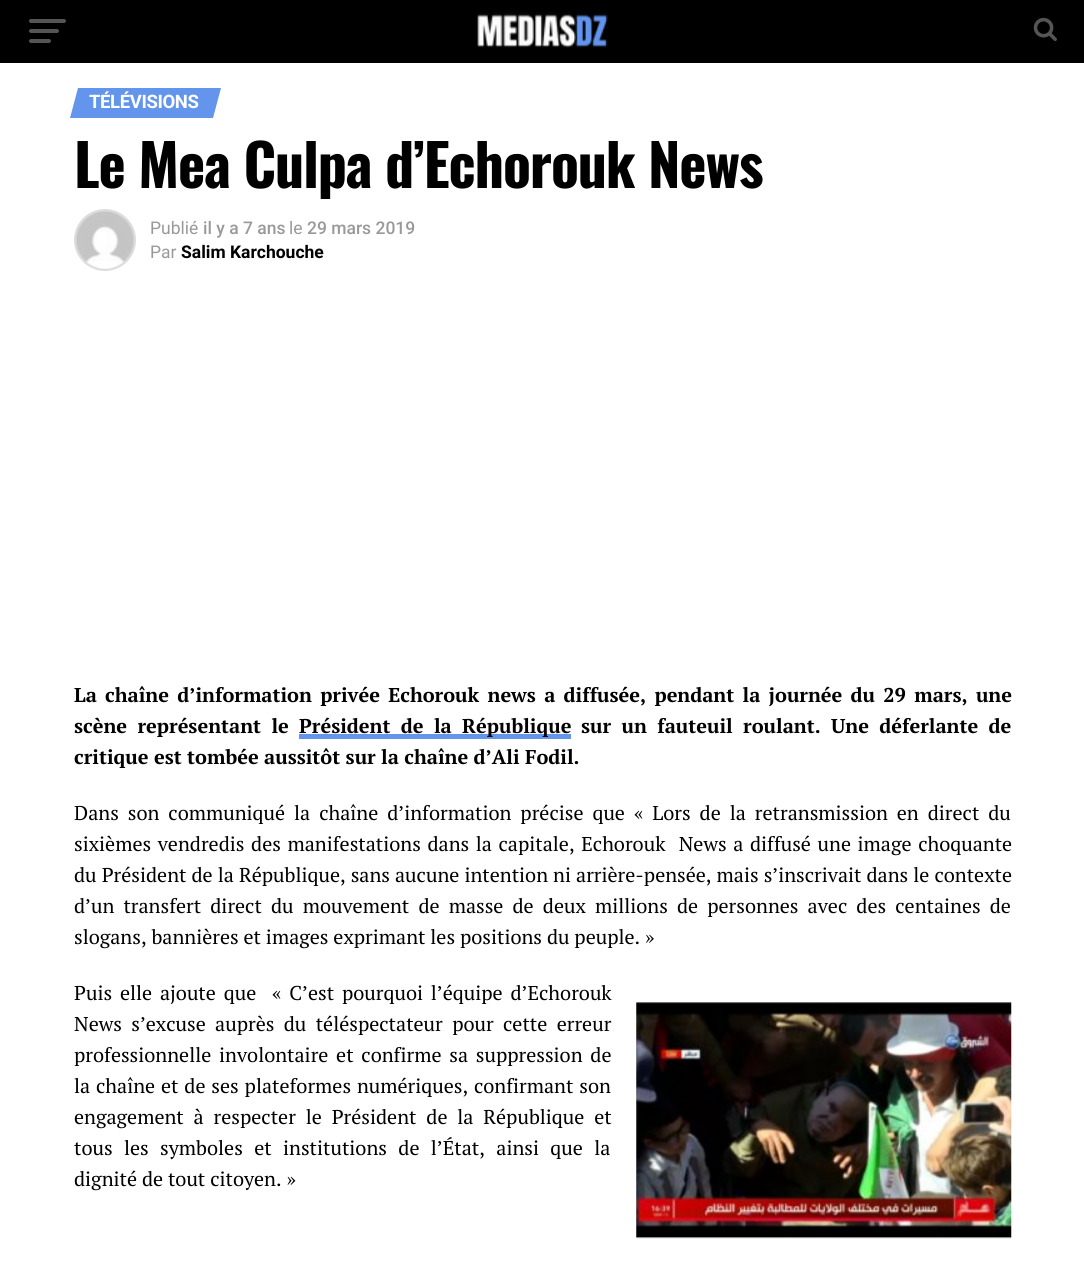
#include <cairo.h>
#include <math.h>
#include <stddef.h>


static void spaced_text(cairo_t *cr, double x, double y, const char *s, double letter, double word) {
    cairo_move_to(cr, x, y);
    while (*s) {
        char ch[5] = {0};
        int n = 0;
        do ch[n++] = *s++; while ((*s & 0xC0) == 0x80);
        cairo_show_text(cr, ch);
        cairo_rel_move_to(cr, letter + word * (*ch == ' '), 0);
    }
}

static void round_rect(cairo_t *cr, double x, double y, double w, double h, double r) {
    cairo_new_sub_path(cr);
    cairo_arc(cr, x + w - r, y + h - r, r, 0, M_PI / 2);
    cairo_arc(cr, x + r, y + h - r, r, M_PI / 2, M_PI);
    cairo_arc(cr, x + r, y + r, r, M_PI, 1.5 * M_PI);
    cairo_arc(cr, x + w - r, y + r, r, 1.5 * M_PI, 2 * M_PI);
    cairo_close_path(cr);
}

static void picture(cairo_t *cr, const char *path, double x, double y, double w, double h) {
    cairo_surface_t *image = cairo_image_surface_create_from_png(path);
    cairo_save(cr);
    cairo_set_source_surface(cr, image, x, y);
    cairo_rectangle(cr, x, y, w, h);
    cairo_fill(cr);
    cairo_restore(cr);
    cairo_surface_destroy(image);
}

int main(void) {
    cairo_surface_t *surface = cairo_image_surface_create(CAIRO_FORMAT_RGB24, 1084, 1262);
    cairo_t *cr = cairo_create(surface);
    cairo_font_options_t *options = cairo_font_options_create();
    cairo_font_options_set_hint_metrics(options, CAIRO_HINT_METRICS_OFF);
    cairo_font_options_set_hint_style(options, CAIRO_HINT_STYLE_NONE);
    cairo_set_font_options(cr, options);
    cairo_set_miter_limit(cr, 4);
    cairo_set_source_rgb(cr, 1, 1, 1);
    cairo_paint(cr);
    cairo_set_source_rgb(cr, 0, 0, 0);
    cairo_rectangle(cr, 0, 0, 1084, 63);
    cairo_fill(cr);
    cairo_set_source_rgb(cr, 0.333, 0.333, 0.333);
    round_rect(cr, 29, 19, 37, 4, 2);
    cairo_fill(cr);
    round_rect(cr, 29, 29, 30, 4, 2);
    cairo_fill(cr);
    round_rect(cr, 29, 39, 22, 4, 2);
    cairo_fill(cr);
    picture(cr, "img1.png", 477, 12, 131, 36);
    picture(cr, "img2.png", 1033, 17, 24, 24);
    cairo_set_source_rgb(cr, 0.392, 0.584, 0.929);
    cairo_new_path(cr);
    cairo_move_to(cr, 78, 88);
    cairo_line_to(cr, 221, 88);
    cairo_line_to(cr, 213, 118);
    cairo_line_to(cr, 70, 118);
    cairo_close_path(cr);
    cairo_fill(cr);
    cairo_select_font_face(cr, "Roboto", CAIRO_FONT_SLANT_NORMAL, CAIRO_FONT_WEIGHT_BOLD);
    cairo_set_font_size(cr, 18.5);
    cairo_set_source_rgb(cr, 1, 1, 1);
    spaced_text(cr, 89, 108, "TÉLÉVISIONS", -0.4, 0);
    cairo_select_font_face(cr, "Oswald", CAIRO_FONT_SLANT_NORMAL, CAIRO_FONT_WEIGHT_BOLD);
    cairo_set_font_size(cr, 58);
    cairo_set_source_rgb(cr, 0, 0, 0);
    spaced_text(cr, 74, 188, "Le Mea Culpa d’Echorouk News", -1.15, 0);
    cairo_new_path(cr);
    cairo_arc(cr, 105, 240, 29.5, 0, 2 * M_PI);
    cairo_set_source_rgb(cr, 0.867, 0.867, 0.867);
    cairo_set_line_width(cr, 3);
    cairo_stroke(cr);
    picture(cr, "img3.png", 76, 211, 58, 58);
    cairo_select_font_face(cr, "Roboto", CAIRO_FONT_SLANT_NORMAL, CAIRO_FONT_WEIGHT_NORMAL);
    cairo_set_font_size(cr, 17.5);
    cairo_set_source_rgb(cr, 0.6, 0.6, 0.6);
    cairo_move_to(cr, 150, 234);
    cairo_show_text(cr, "Publié");
    cairo_select_font_face(cr, "Roboto Medium", CAIRO_FONT_SLANT_NORMAL, CAIRO_FONT_WEIGHT_NORMAL);
    cairo_move_to(cr, 203, 234);
    cairo_show_text(cr, "il y a 7 ans");
    cairo_select_font_face(cr, "Roboto", CAIRO_FONT_SLANT_NORMAL, CAIRO_FONT_WEIGHT_NORMAL);
    cairo_move_to(cr, 289, 234);
    cairo_show_text(cr, "le");
    cairo_select_font_face(cr, "Roboto Medium", CAIRO_FONT_SLANT_NORMAL, CAIRO_FONT_WEIGHT_NORMAL);
    cairo_move_to(cr, 307, 234);
    cairo_show_text(cr, "29 mars 2019");
    cairo_select_font_face(cr, "Roboto", CAIRO_FONT_SLANT_NORMAL, CAIRO_FONT_WEIGHT_NORMAL);
    cairo_move_to(cr, 150, 258);
    cairo_show_text(cr, "Par");
    cairo_select_font_face(cr, "Roboto", CAIRO_FONT_SLANT_NORMAL, CAIRO_FONT_WEIGHT_BOLD);
    cairo_set_source_rgb(cr, 0, 0, 0);
    cairo_move_to(cr, 181, 258);
    cairo_show_text(cr, "Salim Karchouche");
    cairo_select_font_face(cr, "PT Serif", CAIRO_FONT_SLANT_NORMAL, CAIRO_FONT_WEIGHT_BOLD);
    cairo_set_font_size(cr, 20);
    spaced_text(cr, 74, 702, "La chaîne d’information privée Echorouk news a diffusée, pendant la journée du 29 mars, une", 0, 2.9);
    spaced_text(cr, 74, 733, "scène représentant le", 0, 5);
    cairo_set_source_rgb(cr, 0.392, 0.584, 0.929);
    cairo_rectangle(cr, 299, 734, 272, 5);
    cairo_fill(cr);
    cairo_set_source_rgb(cr, 0, 0, 0);
    spaced_text(cr, 299, 733, "Président de la République", 0, 5);
    spaced_text(cr, 581, 733, "sur un fauteuil roulant. Une déferlante de", 0, 5);
    cairo_move_to(cr, 74, 764);
    cairo_show_text(cr, "critique est tombée aussitôt sur la chaîne d’Ali Fodil.");
    cairo_select_font_face(cr, "PT Serif", CAIRO_FONT_SLANT_NORMAL, CAIRO_FONT_WEIGHT_NORMAL);
    spaced_text(cr, 74, 820, "Dans son communiqué la chaîne d’information précise que « Lors de la retransmission en direct du", 0, 4.1);
    spaced_text(cr, 74, 851, "sixièmes vendredis des manifestations dans la capitale, Echorouk  News a diffusé une image choquante", 0, 1.75);
    spaced_text(cr, 74, 882, "du Président de la République, sans aucune intention ni arrière-pensée, mais s’inscrivait dans le contexte", 0, 0.2);
    spaced_text(cr, 74, 913, "d’un transfert direct du mouvement de masse de deux millions de personnes avec des centaines de", 0, 4.25);
    cairo_move_to(cr, 74, 944);
    cairo_show_text(cr, "slogans, bannières et images exprimant les positions du peuple. »");
    spaced_text(cr, 74, 1000, "Puis elle ajoute que  « C’est pourquoi l’équipe d’Echorouk", 0, 3);
    spaced_text(cr, 74, 1031, "News s’excuse auprès du téléspectateur pour cette erreur", 0, 4.5);
    spaced_text(cr, 74, 1062, "professionnelle involontaire et confirme sa suppression de", 0, 2.9);
    spaced_text(cr, 74, 1093, "la chaîne et de ses plateformes numériques, confirmant son", 0, 1);
    spaced_text(cr, 74, 1124, "engagement à respecter le Président de la République et", 0, 5);
    spaced_text(cr, 74, 1155, "tous les symboles et institutions de l’État, ainsi que la", 0, 6.5);
    cairo_move_to(cr, 74, 1186);
    cairo_show_text(cr, "dignité de tout citoyen. »");
    picture(cr, "img4.png", 636, 1002, 376, 237);
    cairo_surface_write_to_png(surface, "page.png");
    cairo_font_options_destroy(options);
    cairo_destroy(cr);
    cairo_surface_destroy(surface);
    return 0;
}
